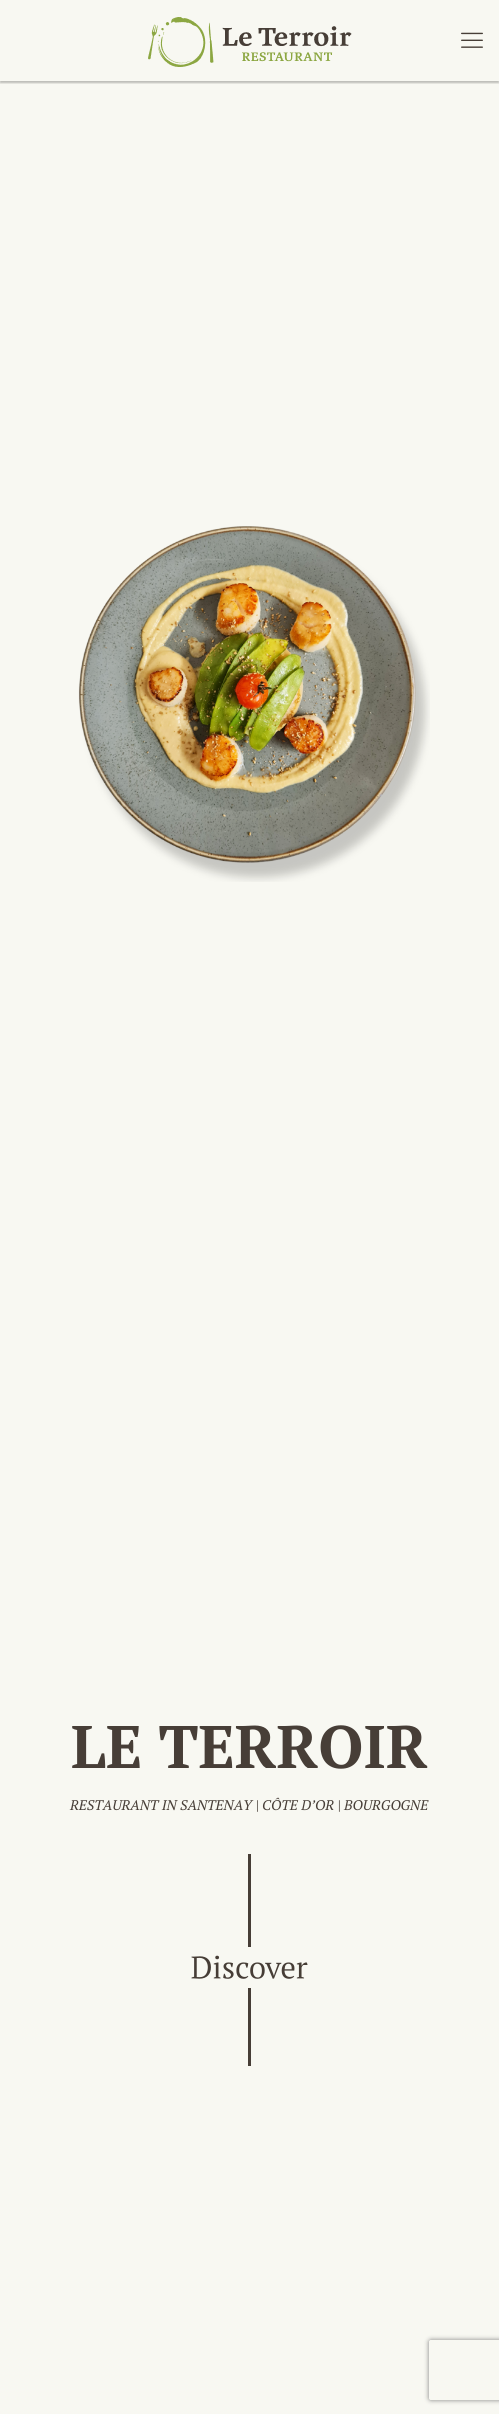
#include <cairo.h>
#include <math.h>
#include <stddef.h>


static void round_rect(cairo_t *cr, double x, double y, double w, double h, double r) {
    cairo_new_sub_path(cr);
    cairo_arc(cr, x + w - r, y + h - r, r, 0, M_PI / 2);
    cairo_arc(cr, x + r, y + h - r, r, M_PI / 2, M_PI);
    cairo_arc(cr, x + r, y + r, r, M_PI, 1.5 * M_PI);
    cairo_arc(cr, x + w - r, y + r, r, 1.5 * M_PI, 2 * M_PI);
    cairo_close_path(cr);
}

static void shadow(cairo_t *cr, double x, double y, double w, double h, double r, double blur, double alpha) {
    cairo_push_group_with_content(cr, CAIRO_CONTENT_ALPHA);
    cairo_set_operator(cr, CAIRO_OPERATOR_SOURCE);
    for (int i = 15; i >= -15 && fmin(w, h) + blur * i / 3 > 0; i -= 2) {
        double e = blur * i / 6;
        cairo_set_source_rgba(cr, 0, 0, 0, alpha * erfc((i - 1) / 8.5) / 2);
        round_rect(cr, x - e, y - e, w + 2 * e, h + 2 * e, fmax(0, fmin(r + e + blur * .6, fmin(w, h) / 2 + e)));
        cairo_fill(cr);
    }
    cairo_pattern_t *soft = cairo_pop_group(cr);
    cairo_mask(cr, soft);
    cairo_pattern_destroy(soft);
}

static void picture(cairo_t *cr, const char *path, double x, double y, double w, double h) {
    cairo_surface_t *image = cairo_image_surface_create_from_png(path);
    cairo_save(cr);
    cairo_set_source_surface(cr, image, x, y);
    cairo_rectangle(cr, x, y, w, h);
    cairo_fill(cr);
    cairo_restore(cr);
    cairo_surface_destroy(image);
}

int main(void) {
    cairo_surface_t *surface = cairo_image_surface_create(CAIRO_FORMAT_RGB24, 499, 2414);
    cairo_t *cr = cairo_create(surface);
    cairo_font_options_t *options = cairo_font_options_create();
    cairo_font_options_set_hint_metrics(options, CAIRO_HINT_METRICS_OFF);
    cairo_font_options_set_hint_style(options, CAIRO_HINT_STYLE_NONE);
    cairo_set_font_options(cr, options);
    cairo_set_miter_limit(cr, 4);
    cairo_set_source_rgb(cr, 0.969, 0.969, 0.949);
    cairo_paint(cr);
    cairo_save(cr);
    cairo_rectangle(cr, 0, 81, 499, 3);
    cairo_clip(cr);
    cairo_set_source_rgb(cr, 0, 0, 0);
    shadow(cr, 0, 2, 499, 81, 0, 1, 0.25);
    cairo_restore(cr);
    picture(cr, "img1.png", 148, 17, 204, 50);
    picture(cr, "img2.png", 461, 32, 22, 16);
    picture(cr, "img3.png", 78, 526, 352, 356);
    cairo_select_font_face(cr, "PT Serif", CAIRO_FONT_SLANT_NORMAL, CAIRO_FONT_WEIGHT_BOLD);
    cairo_set_font_size(cr, 60);
    cairo_set_source_rgb(cr, 0.278, 0.243, 0.216);
    cairo_move_to(cr, 71, 1768);
    cairo_show_text(cr, "LE TERROIR");
    cairo_select_font_face(cr, "PT Serif", CAIRO_FONT_SLANT_ITALIC, CAIRO_FONT_WEIGHT_NORMAL);
    cairo_set_font_size(cr, 14);
    cairo_move_to(cr, 70, 1810);
    cairo_show_text(cr, "RESTAURANT IN SANTENAY | CÔTE D’OR | BOURGOGNE");
    picture(cr, "img4.png", 191, 1854, 117, 212);
    cairo_save(cr);
    cairo_set_fill_rule(cr, CAIRO_FILL_RULE_EVEN_ODD);
    cairo_new_path(cr);
    cairo_move_to(cr, 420, 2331);
    cairo_line_to(cr, 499, 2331);
    cairo_line_to(cr, 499, 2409);
    cairo_line_to(cr, 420, 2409);
    cairo_close_path(cr);
    cairo_move_to(cr, 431, 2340);
    cairo_line_to(cr, 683, 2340);
    cairo_curve_to(cr, 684, 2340, 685, 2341, 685, 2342);
    cairo_line_to(cr, 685, 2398);
    cairo_curve_to(cr, 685, 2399, 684, 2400, 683, 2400);
    cairo_line_to(cr, 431, 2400);
    cairo_curve_to(cr, 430, 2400, 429, 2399, 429, 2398);
    cairo_line_to(cr, 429, 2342);
    cairo_curve_to(cr, 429, 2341, 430, 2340, 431, 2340);
    cairo_close_path(cr);
    cairo_clip(cr);
    cairo_set_source_rgb(cr, 0.502, 0.502, 0.502);
    shadow(cr, 429, 2340, 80, 60, 2, 2.5, 1);
    cairo_restore(cr);
    cairo_surface_write_to_png(surface, "page.png");
    cairo_font_options_destroy(options);
    cairo_destroy(cr);
    cairo_surface_destroy(surface);
    return 0;
}
